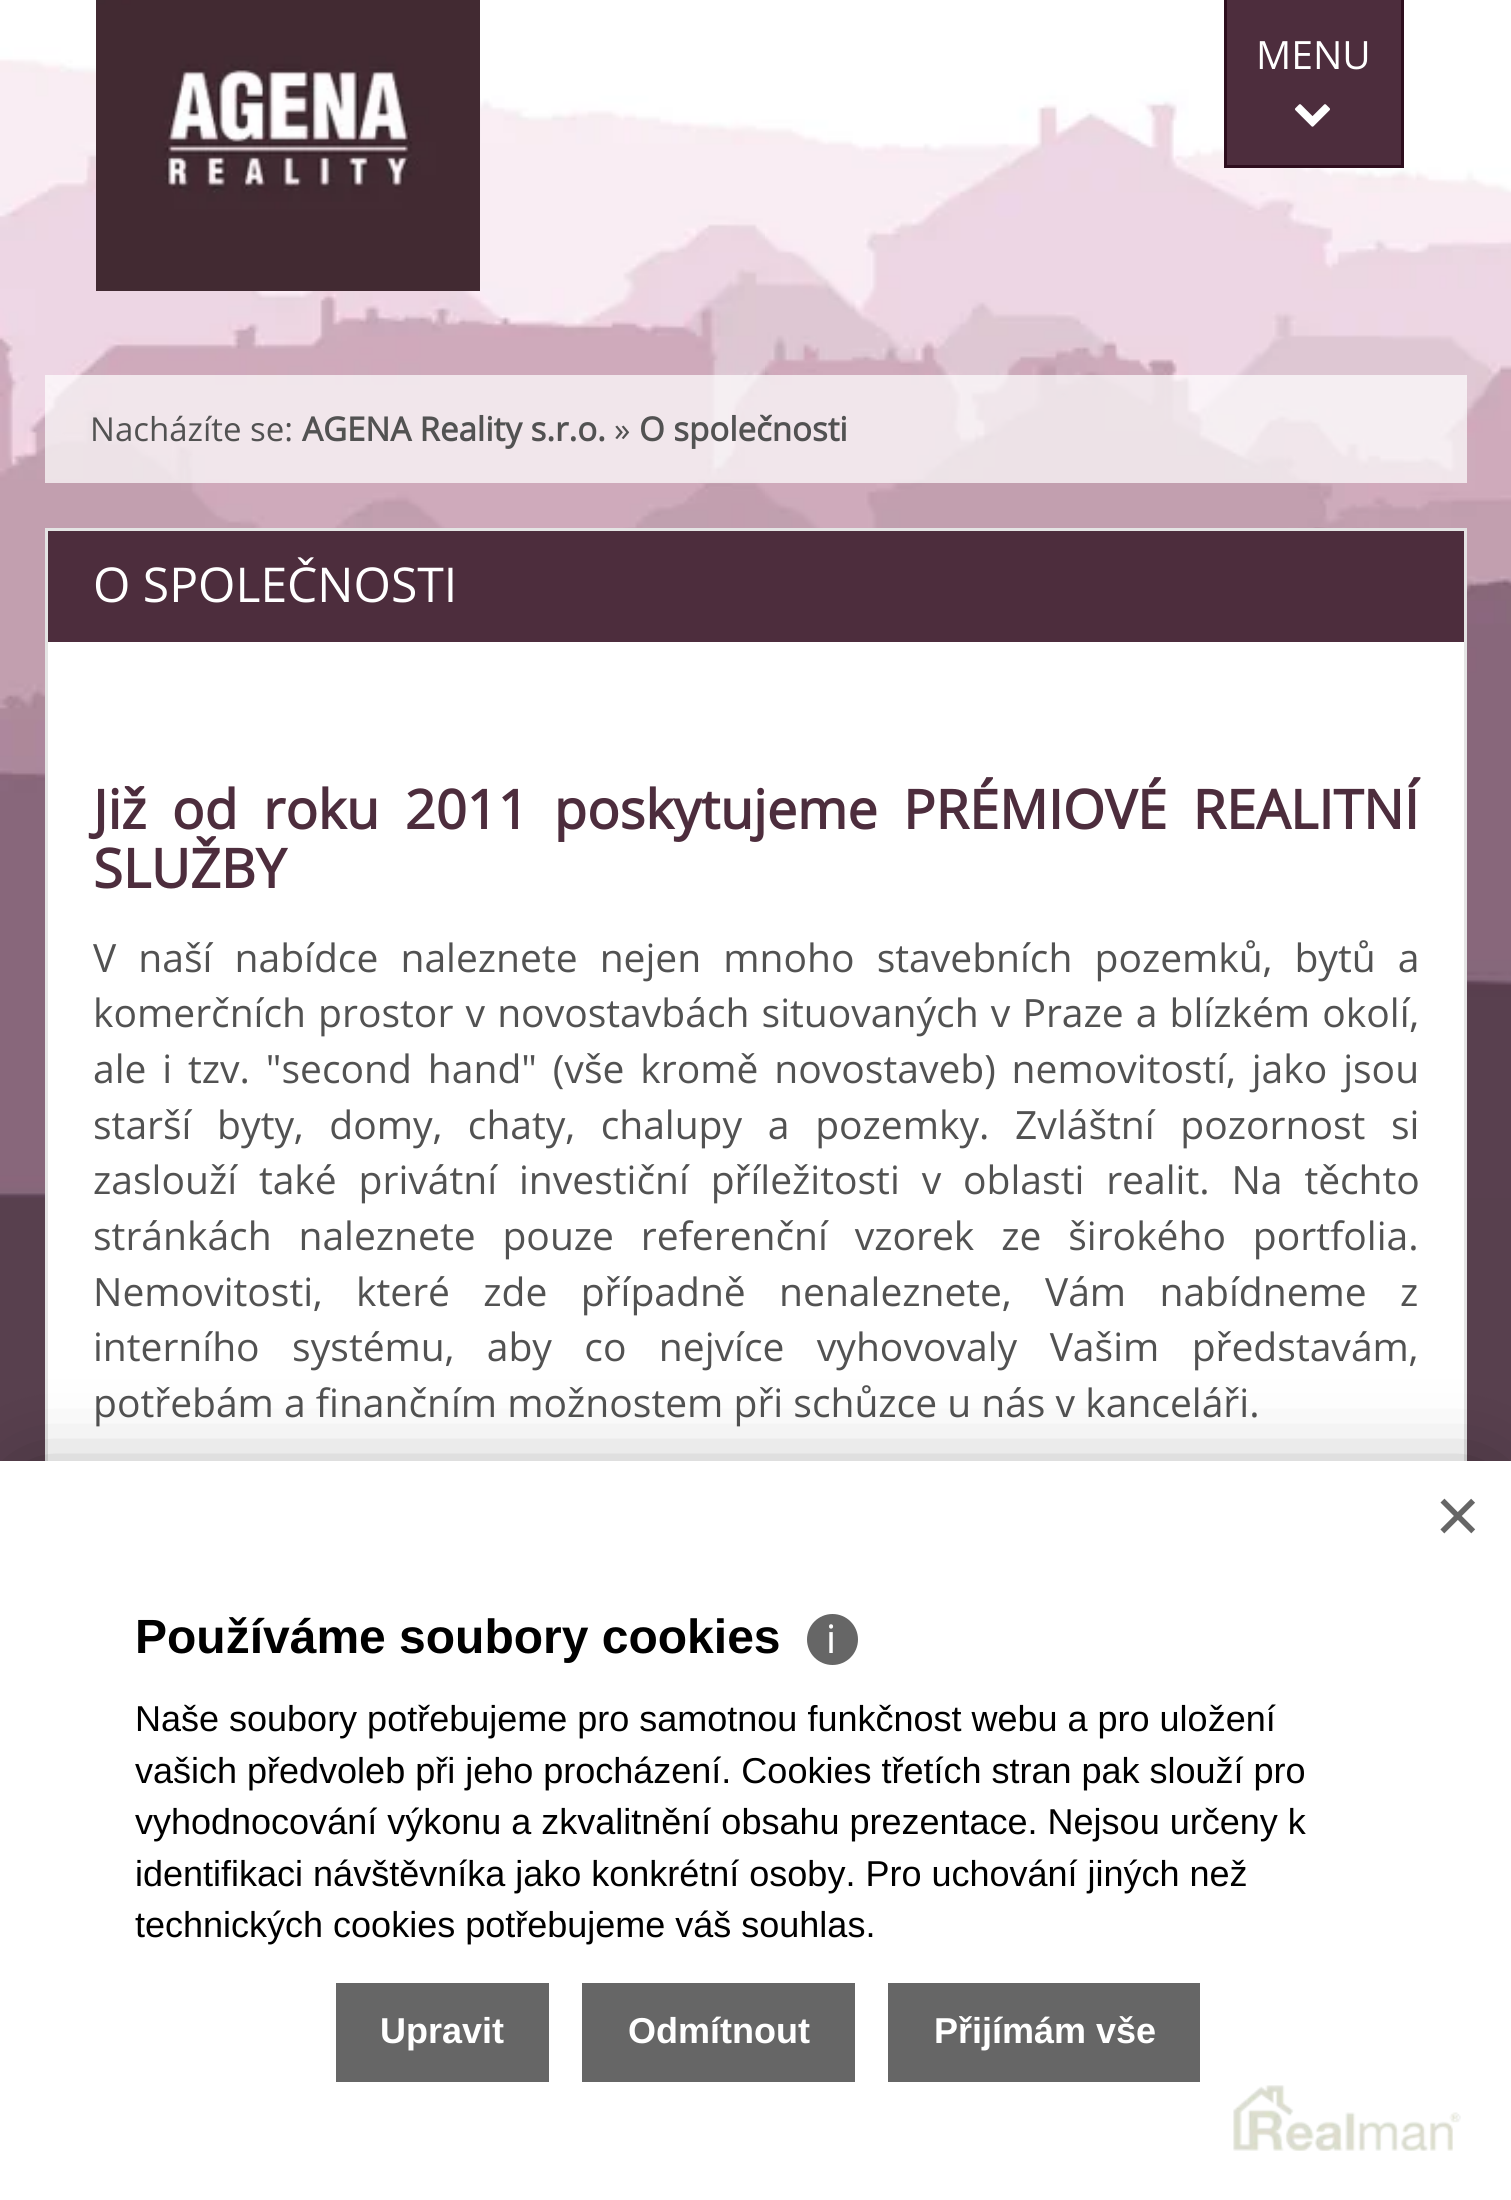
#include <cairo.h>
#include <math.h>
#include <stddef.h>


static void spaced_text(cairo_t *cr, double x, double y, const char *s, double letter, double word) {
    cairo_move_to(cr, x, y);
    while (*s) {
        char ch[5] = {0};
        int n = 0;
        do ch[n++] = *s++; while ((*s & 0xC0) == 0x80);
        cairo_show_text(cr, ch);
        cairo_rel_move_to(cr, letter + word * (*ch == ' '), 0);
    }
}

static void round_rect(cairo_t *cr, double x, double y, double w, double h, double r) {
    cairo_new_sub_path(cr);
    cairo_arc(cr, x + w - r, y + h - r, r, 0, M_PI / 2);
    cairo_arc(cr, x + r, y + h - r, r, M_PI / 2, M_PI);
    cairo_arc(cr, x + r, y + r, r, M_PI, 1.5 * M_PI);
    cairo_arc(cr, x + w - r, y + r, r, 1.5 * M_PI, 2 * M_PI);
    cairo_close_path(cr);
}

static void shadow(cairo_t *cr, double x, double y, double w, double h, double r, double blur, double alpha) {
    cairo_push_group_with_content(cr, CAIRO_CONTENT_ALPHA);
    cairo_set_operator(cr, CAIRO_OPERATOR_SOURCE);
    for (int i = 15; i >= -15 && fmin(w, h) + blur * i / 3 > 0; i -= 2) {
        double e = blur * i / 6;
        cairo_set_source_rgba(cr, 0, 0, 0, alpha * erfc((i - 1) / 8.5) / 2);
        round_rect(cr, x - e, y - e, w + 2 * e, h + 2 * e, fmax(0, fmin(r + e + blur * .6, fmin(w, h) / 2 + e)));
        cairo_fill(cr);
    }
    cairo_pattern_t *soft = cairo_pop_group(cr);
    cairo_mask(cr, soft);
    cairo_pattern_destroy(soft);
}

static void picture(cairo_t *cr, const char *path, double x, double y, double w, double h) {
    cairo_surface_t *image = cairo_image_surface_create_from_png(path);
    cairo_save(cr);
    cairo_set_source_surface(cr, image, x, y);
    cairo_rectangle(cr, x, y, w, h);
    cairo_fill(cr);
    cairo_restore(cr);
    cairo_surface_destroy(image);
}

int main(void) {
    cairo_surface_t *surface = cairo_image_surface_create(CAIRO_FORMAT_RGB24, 1511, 2200);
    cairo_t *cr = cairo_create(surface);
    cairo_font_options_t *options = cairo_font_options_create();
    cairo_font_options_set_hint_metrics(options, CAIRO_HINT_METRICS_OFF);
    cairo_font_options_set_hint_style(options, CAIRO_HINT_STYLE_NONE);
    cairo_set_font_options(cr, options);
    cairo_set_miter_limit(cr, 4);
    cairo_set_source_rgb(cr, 0.345, 0.251, 0.306);
    cairo_paint(cr);
    picture(cr, "img1.png", 0, 0, 1511, 1198);
    picture(cr, "img2.png", 96, 0, 384, 291);
    cairo_set_source_rgb(cr, 0.302, 0.176, 0.239);
    cairo_rectangle(cr, 1225.5, -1.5, 177, 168);
    cairo_fill_preserve(cr);
    cairo_set_source_rgb(cr, 0.18, 0.055, 0.118);
    cairo_set_line_width(cr, 3);
    cairo_stroke(cr);
    cairo_select_font_face(cr, "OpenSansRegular", CAIRO_FONT_SLANT_NORMAL, CAIRO_FONT_WEIGHT_NORMAL);
    cairo_set_font_size(cr, 39);
    cairo_set_source_rgb(cr, 1, 1, 1);
    cairo_move_to(cr, 1256, 69);
    cairo_show_text(cr, "MENU");
    picture(cr, "img3.png", 1295, 104, 35, 23);
    cairo_set_source_rgba(cr, 1, 1, 1, 0.7);
    cairo_rectangle(cr, 45, 375, 1422, 108);
    cairo_fill(cr);
    cairo_set_font_size(cr, 33);
    cairo_set_source_rgb(cr, 0.322, 0.322, 0.322);
    cairo_move_to(cr, 90, 441);
    cairo_show_text(cr, "Nacházíte se:");
    cairo_select_font_face(cr, "OpenSansRegular", CAIRO_FONT_SLANT_NORMAL, CAIRO_FONT_WEIGHT_BOLD);
    cairo_move_to(cr, 302, 441);
    cairo_show_text(cr, "AGENA Reality s.r.o.");
    cairo_select_font_face(cr, "OpenSansRegular", CAIRO_FONT_SLANT_NORMAL, CAIRO_FONT_WEIGHT_NORMAL);
    cairo_move_to(cr, 614, 441);
    cairo_show_text(cr, "»");
    cairo_select_font_face(cr, "OpenSansRegular", CAIRO_FONT_SLANT_NORMAL, CAIRO_FONT_WEIGHT_BOLD);
    cairo_move_to(cr, 639, 441);
    cairo_show_text(cr, "O společnosti");
    cairo_set_source_rgb(cr, 1, 1, 1);
    cairo_rectangle(cr, 48, 642, 1416, 819);
    cairo_fill(cr);
    cairo_rectangle(cr, 46.5, 529.5, 1419, 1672);
    cairo_set_source_rgb(cr, 0.894, 0.894, 0.894);
    cairo_stroke(cr);
    cairo_set_source_rgb(cr, 0.302, 0.176, 0.239);
    cairo_rectangle(cr, 48, 531, 1416, 111);
    cairo_fill(cr);
    cairo_select_font_face(cr, "OpenSansRegular", CAIRO_FONT_SLANT_NORMAL, CAIRO_FONT_WEIGHT_NORMAL);
    cairo_set_font_size(cr, 48);
    cairo_set_source_rgb(cr, 1, 1, 1);
    cairo_move_to(cr, 93, 602);
    cairo_show_text(cr, "O SPOLEČNOSTI");
    cairo_select_font_face(cr, "OpenSansRegular", CAIRO_FONT_SLANT_NORMAL, CAIRO_FONT_WEIGHT_BOLD);
    cairo_set_font_size(cr, 54);
    cairo_set_source_rgb(cr, 0.302, 0.176, 0.239);
    spaced_text(cr, 93, 829, "Již od roku 2011 poskytujeme PRÉMIOVÉ REALITNÍ", 0, 11.5);
    cairo_move_to(cr, 93, 888);
    cairo_show_text(cr, "SLUŽBY");
    cairo_select_font_face(cr, "OpenSansRegular", CAIRO_FONT_SLANT_NORMAL, CAIRO_FONT_WEIGHT_NORMAL);
    cairo_set_font_size(cr, 39);
    cairo_set_source_rgb(cr, 0.322, 0.322, 0.322);
    spaced_text(cr, 93, 972, "V naší nabídce naleznete nejen mnoho stavebních pozemků, bytů a", 0, 12);
    spaced_text(cr, 93, 1027, "komerčních prostor v novostavbách situovaných v Praze a blízkém okolí,", 0, 2);
    spaced_text(cr, 93, 1083, "ale i tzv. \"second hand\" (vše kromě novostaveb) nemovitostí, jako jsou", 0, 5.75);
    spaced_text(cr, 93, 1139, "starší byty, domy, chaty, chalupy a pozemky. Zvláštní pozornost si", 0, 15.5);
    spaced_text(cr, 93, 1194, "zaslouží také privátní investiční příležitosti v oblasti realit. Na těchto", 0, 11.75);
    spaced_text(cr, 93, 1250, "stránkách naleznete pouze referenční vzorek ze širokého portfolia.", 0, 16.75);
    spaced_text(cr, 93, 1306, "Nemovitosti, které zde případně nenaleznete, Vám nabídneme z", 0, 23.25);
    spaced_text(cr, 93, 1361, "interního systému, aby co nejvíce vyhovovaly Vašim představám,", 0, 22.25);
    cairo_move_to(cr, 93, 1417);
    cairo_show_text(cr, "potřebám a finančním možnostem při schůzce u nás v kanceláři.");
    cairo_set_source_rgb(cr, 0, 0, 0);
    shadow(cr, 30, 1491, 1452, 681, 0, 45, 0.5);
    cairo_set_source_rgb(cr, 1, 1, 1);
    cairo_rectangle(cr, 0, 1461, 1511, 739);
    cairo_fill(cr);
    picture(cr, "img4.png", 1233, 2085, 228, 66);
    cairo_select_font_face(cr, "Liberation Sans", CAIRO_FONT_SLANT_NORMAL, CAIRO_FONT_WEIGHT_NORMAL);
    cairo_set_font_size(cr, 78);
    cairo_set_source_rgb(cr, 0.4, 0.4, 0.4);
    cairo_move_to(cr, 1435, 1542);
    cairo_show_text(cr, "×");
    cairo_select_font_face(cr, "Liberation Sans", CAIRO_FONT_SLANT_NORMAL, CAIRO_FONT_WEIGHT_BOLD);
    cairo_set_font_size(cr, 48);
    cairo_set_source_rgb(cr, 0, 0, 0);
    cairo_move_to(cr, 135, 1653);
    cairo_show_text(cr, "Používáme soubory cookies");
    cairo_set_source_rgb(cr, 0.4, 0.4, 0.4);
    cairo_new_path(cr);
    cairo_arc(cr, 832.5, 1639.5, 25.5, 0, 2 * M_PI);
    cairo_fill(cr);
    cairo_select_font_face(cr, "Noto Sans", CAIRO_FONT_SLANT_NORMAL, CAIRO_FONT_WEIGHT_NORMAL);
    cairo_set_font_size(cr, 39);
    cairo_set_source_rgb(cr, 1, 1, 1);
    cairo_move_to(cr, 826, 1653);
    cairo_show_text(cr, "ℹ");
    cairo_select_font_face(cr, "Liberation Sans", CAIRO_FONT_SLANT_NORMAL, CAIRO_FONT_WEIGHT_NORMAL);
    cairo_set_font_size(cr, 36);
    cairo_set_source_rgb(cr, 0, 0, 0);
    cairo_move_to(cr, 135, 1731);
    cairo_show_text(cr, "Naše soubory potřebujeme pro samotnou funkčnost webu a pro uložení");
    cairo_move_to(cr, 135, 1783);
    cairo_show_text(cr, "vašich předvoleb při jeho procházení. Cookies třetích stran pak slouží pro");
    cairo_move_to(cr, 135, 1834);
    cairo_show_text(cr, "vyhodnocování výkonu a zkvalitnění obsahu prezentace. Nejsou určeny k");
    cairo_move_to(cr, 135, 1886);
    cairo_show_text(cr, "identifikaci návštěvníka jako konkrétní osoby. Pro uchování jiných než");
    cairo_move_to(cr, 135, 1937);
    cairo_show_text(cr, "technických cookies potřebujeme váš souhlas.");
    cairo_set_source_rgb(cr, 0.4, 0.4, 0.4);
    cairo_rectangle(cr, 336, 1983, 213, 99);
    cairo_fill(cr);
    cairo_select_font_face(cr, "Liberation Sans", CAIRO_FONT_SLANT_NORMAL, CAIRO_FONT_WEIGHT_BOLD);
    cairo_set_source_rgb(cr, 1, 1, 1);
    cairo_move_to(cr, 380, 2043);
    cairo_show_text(cr, "Upravit");
    cairo_set_source_rgb(cr, 0.4, 0.4, 0.4);
    cairo_rectangle(cr, 582, 1983, 273, 99);
    cairo_fill(cr);
    cairo_set_source_rgb(cr, 1, 1, 1);
    cairo_move_to(cr, 628, 2043);
    cairo_show_text(cr, "Odmítnout");
    cairo_set_source_rgb(cr, 0.4, 0.4, 0.4);
    cairo_rectangle(cr, 888, 1983, 312, 99);
    cairo_fill(cr);
    cairo_set_source_rgb(cr, 1, 1, 1);
    cairo_move_to(cr, 934, 2043);
    cairo_show_text(cr, "Přijímám vše");
    cairo_surface_write_to_png(surface, "page.png");
    cairo_font_options_destroy(options);
    cairo_destroy(cr);
    cairo_surface_destroy(surface);
    return 0;
}
